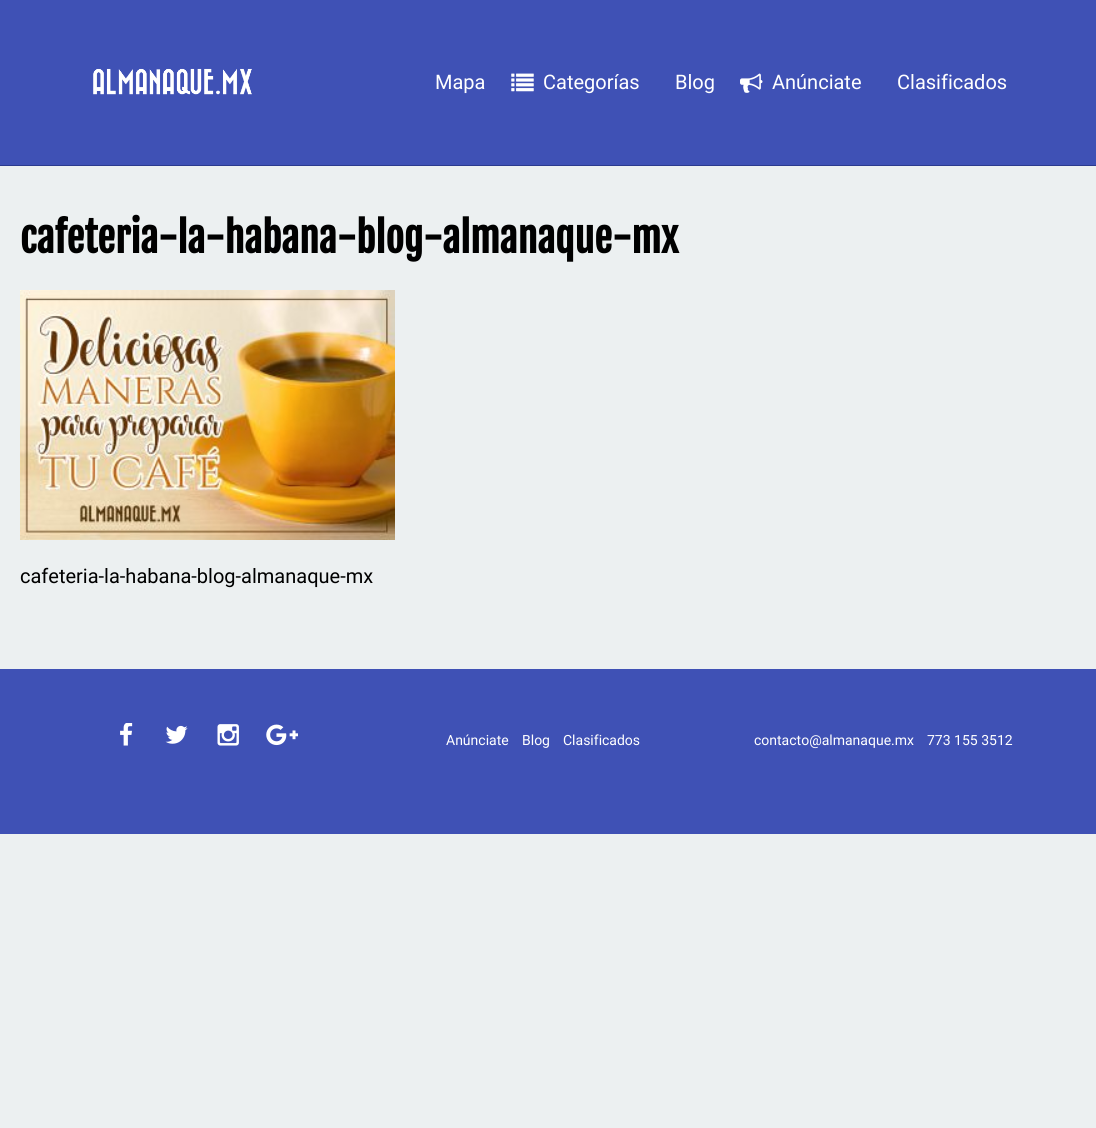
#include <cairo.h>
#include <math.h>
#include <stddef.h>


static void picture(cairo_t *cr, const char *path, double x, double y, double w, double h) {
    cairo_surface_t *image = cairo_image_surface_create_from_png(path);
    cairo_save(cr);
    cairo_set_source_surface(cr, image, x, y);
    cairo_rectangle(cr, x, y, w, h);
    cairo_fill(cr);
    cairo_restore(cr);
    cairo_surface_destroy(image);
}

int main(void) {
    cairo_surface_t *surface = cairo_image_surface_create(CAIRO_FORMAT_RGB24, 1096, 1128);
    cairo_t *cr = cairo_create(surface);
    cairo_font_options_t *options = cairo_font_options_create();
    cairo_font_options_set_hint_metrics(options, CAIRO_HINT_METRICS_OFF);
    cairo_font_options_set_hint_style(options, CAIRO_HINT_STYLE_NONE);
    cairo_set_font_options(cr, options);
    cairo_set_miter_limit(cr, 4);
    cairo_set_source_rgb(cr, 0.925, 0.941, 0.945);
    cairo_paint(cr);
    cairo_set_source_rgb(cr, 0.247, 0.318, 0.71);
    cairo_rectangle(cr, 0, 0, 1096, 165);
    cairo_fill(cr);
    cairo_set_source_rgb(cr, 0.169, 0.227, 0.557);
    cairo_rectangle(cr, 0, 165, 1096, 1);
    cairo_fill(cr);
    picture(cr, "img1.png", 93, 68, 159, 27);
    cairo_select_font_face(cr, "Roboto", CAIRO_FONT_SLANT_NORMAL, CAIRO_FONT_WEIGHT_NORMAL);
    cairo_set_font_size(cr, 20);
    cairo_set_source_rgb(cr, 1, 1, 1);
    cairo_move_to(cr, 435, 89);
    cairo_show_text(cr, "Mapa");
    picture(cr, "img2.png", 511, 73, 23, 19);
    cairo_move_to(cr, 543, 89);
    cairo_show_text(cr, "Categorías");
    cairo_move_to(cr, 675, 89);
    cairo_show_text(cr, "Blog");
    picture(cr, "img3.png", 740, 73, 23, 20);
    cairo_move_to(cr, 772, 89);
    cairo_show_text(cr, "Anúnciate");
    cairo_move_to(cr, 897, 89);
    cairo_show_text(cr, "Clasificados");
    cairo_select_font_face(cr, "Fjalla One", CAIRO_FONT_SLANT_NORMAL, CAIRO_FONT_WEIGHT_BOLD);
    cairo_set_font_size(cr, 40);
    cairo_set_source_rgb(cr, 0, 0, 0);
    cairo_move_to(cr, 20, 253);
    cairo_show_text(cr, "cafeteria-la-habana-blog-almanaque-mx");
    picture(cr, "img4.png", 20, 290, 375, 250);
    cairo_select_font_face(cr, "Roboto", CAIRO_FONT_SLANT_NORMAL, CAIRO_FONT_WEIGHT_NORMAL);
    cairo_set_font_size(cr, 20);
    cairo_move_to(cr, 20, 583);
    cairo_show_text(cr, "cafeteria-la-habana-blog-almanaque-mx");
    cairo_set_source_rgb(cr, 0.247, 0.318, 0.71);
    cairo_rectangle(cr, 0, 669, 1096, 165);
    cairo_fill(cr);
    picture(cr, "img5.png", 120, 723, 13, 23);
    picture(cr, "img6.png", 165, 725, 23, 19);
    picture(cr, "img7.png", 217, 724, 22, 22);
    picture(cr, "img8.png", 266, 724, 32, 22);
    cairo_set_font_size(cr, 14);
    cairo_set_source_rgb(cr, 1, 1, 1);
    cairo_move_to(cr, 446, 745);
    cairo_show_text(cr, "Anúnciate");
    cairo_move_to(cr, 522, 745);
    cairo_show_text(cr, "Blog");
    cairo_move_to(cr, 563, 745);
    cairo_show_text(cr, "Clasificados");
    cairo_move_to(cr, 754, 745);
    cairo_show_text(cr, "contacto@almanaque.mx");
    cairo_move_to(cr, 927, 745);
    cairo_show_text(cr, "773 155 3512");
    cairo_surface_write_to_png(surface, "page.png");
    cairo_font_options_destroy(options);
    cairo_destroy(cr);
    cairo_surface_destroy(surface);
    return 0;
}
